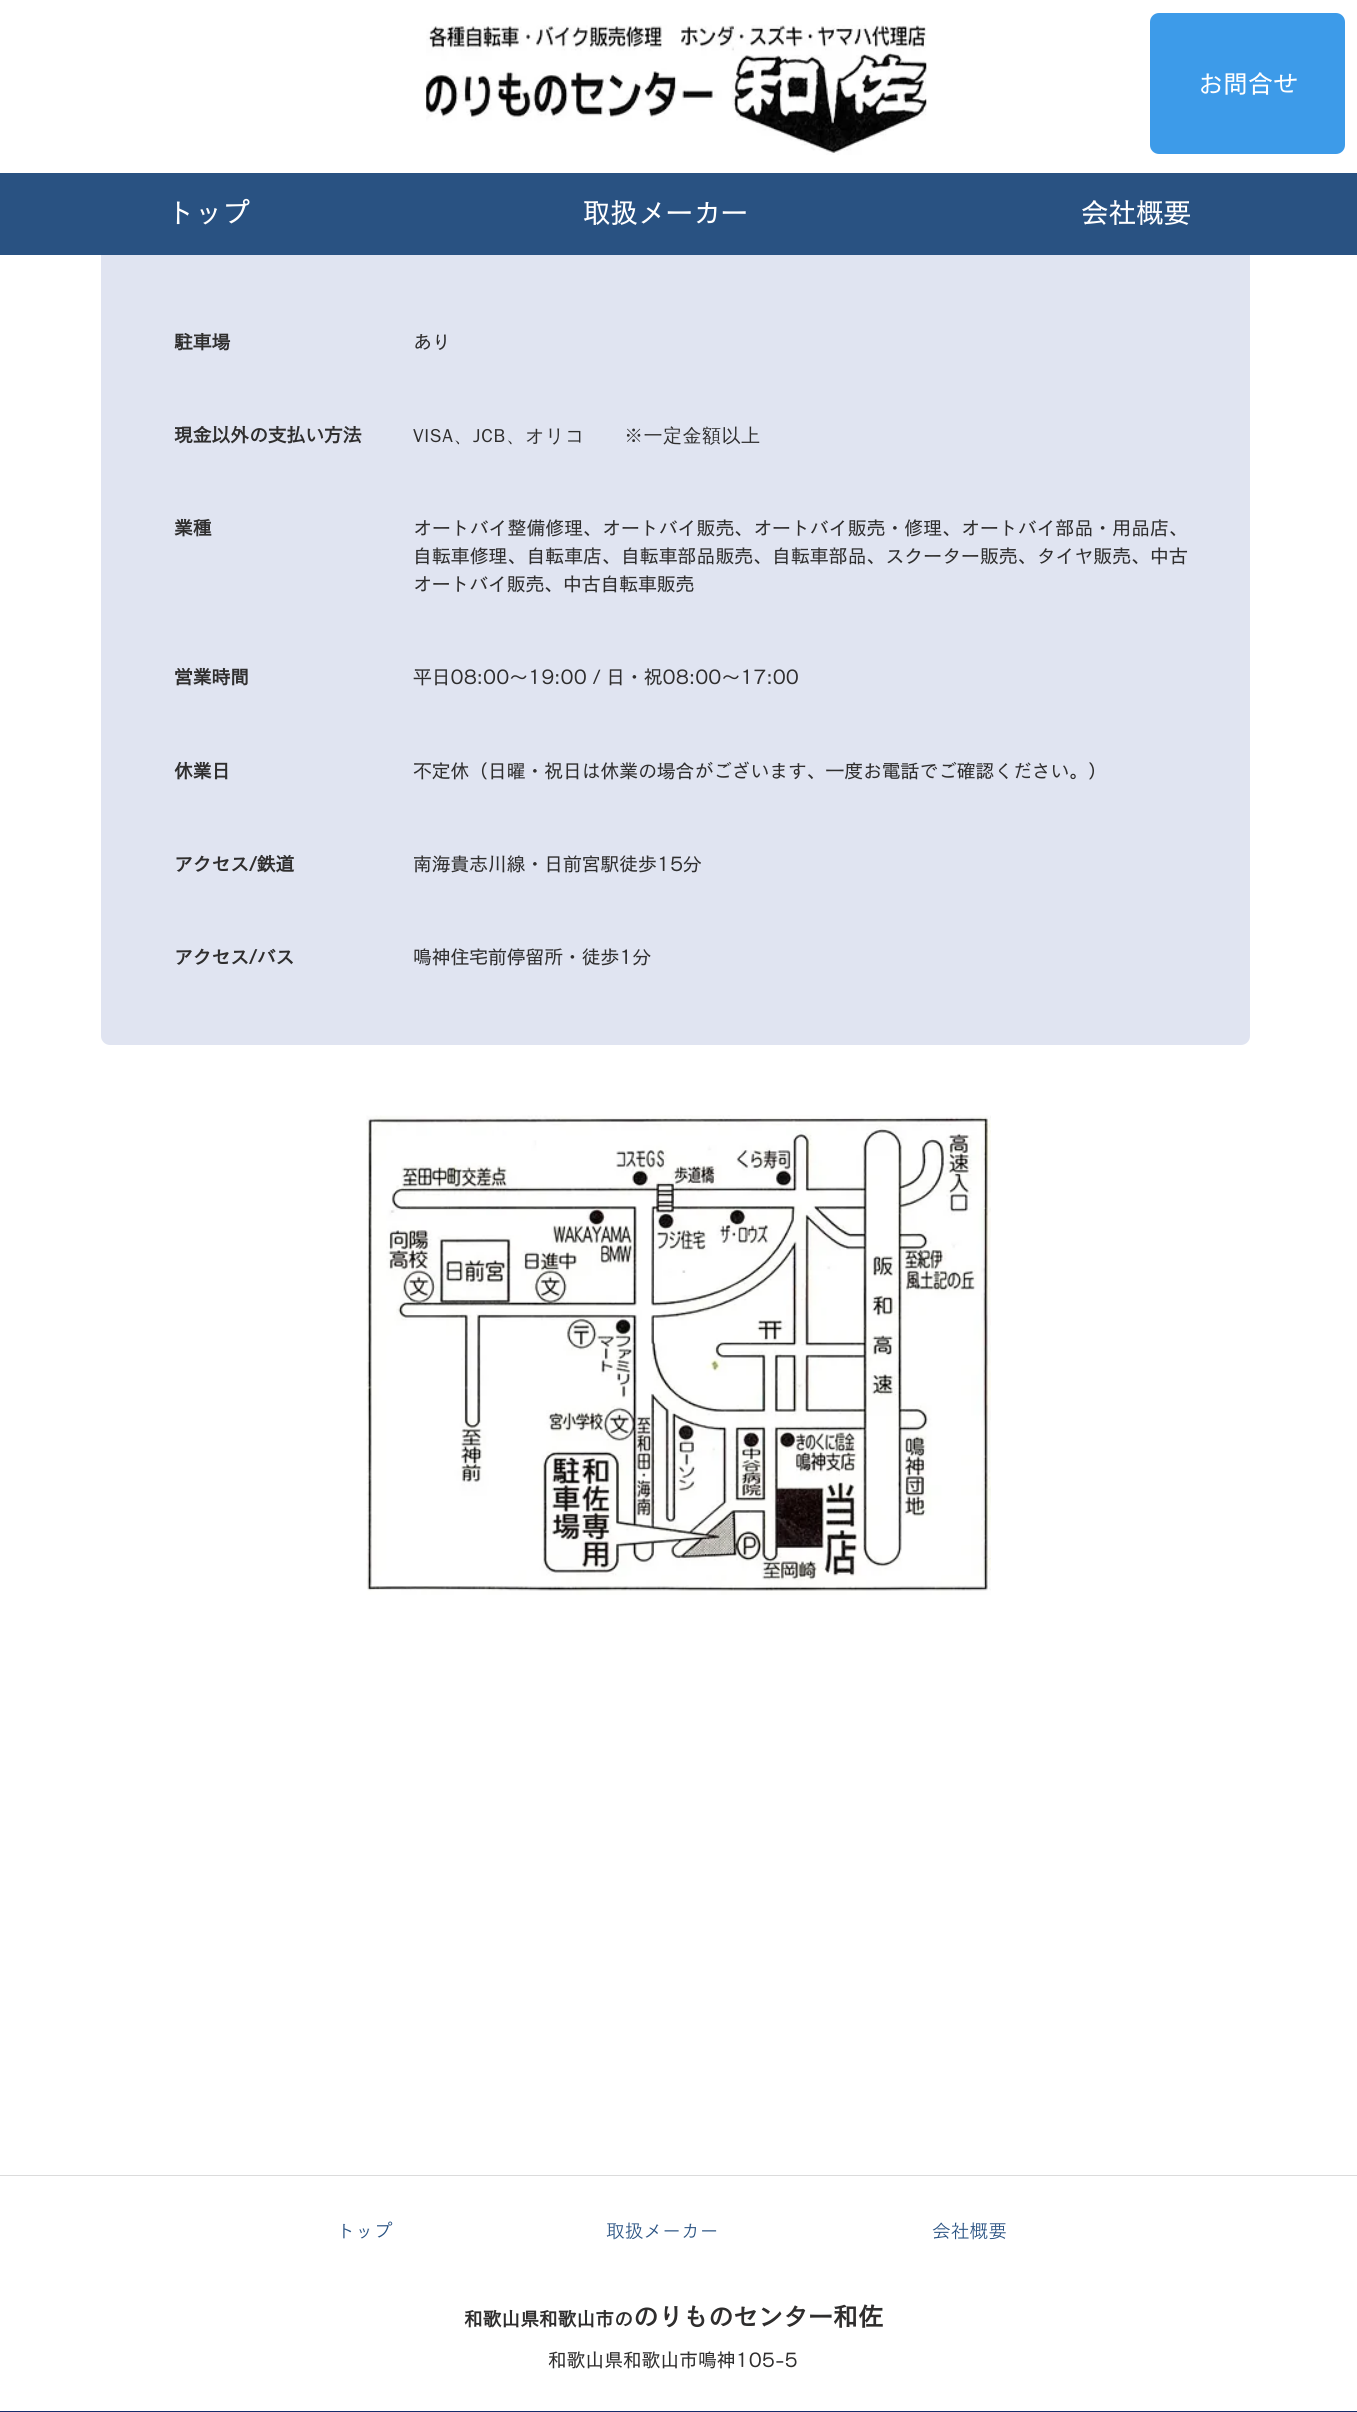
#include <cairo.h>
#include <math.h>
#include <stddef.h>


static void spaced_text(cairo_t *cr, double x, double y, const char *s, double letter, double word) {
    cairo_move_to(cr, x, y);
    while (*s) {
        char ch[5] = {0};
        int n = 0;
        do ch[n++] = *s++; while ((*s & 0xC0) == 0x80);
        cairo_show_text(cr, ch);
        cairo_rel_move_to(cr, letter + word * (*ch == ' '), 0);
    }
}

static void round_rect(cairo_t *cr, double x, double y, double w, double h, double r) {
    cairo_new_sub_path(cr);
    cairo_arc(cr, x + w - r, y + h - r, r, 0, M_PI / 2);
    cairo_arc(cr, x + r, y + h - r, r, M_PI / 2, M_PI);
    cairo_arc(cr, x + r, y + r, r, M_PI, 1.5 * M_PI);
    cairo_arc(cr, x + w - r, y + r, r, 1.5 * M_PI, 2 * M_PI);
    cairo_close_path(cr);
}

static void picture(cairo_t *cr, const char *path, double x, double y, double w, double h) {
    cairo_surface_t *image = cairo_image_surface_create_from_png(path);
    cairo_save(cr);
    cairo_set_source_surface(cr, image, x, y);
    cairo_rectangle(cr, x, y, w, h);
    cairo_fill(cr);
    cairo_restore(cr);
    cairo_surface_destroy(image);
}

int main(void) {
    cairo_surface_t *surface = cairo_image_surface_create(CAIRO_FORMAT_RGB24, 1357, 2412);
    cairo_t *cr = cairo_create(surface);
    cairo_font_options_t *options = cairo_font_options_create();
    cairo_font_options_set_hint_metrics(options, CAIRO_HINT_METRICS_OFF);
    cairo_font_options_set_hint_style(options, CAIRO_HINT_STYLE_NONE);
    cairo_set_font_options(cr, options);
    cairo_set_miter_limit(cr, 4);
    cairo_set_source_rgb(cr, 1, 1, 1);
    cairo_paint(cr);
    cairo_set_source_rgb(cr, 0.878, 0.894, 0.945);
    round_rect(cr, 101, -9, 1149, 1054, 9);
    cairo_fill(cr);
    cairo_set_source_rgb(cr, 1, 1, 1);
    cairo_rectangle(cr, 101, 0, 1149, 173);
    cairo_fill(cr);
    cairo_set_source_rgb(cr, 0.239, 0.608, 0.914);
    round_rect(cr, 1150, 13, 195, 141, 9);
    cairo_fill(cr);
    cairo_select_font_face(cr, "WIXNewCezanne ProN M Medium", CAIRO_FONT_SLANT_NORMAL, CAIRO_FONT_WEIGHT_NORMAL);
    cairo_set_font_size(cr, 25);
    cairo_set_source_rgb(cr, 1, 1, 1);
    cairo_move_to(cr, 1198, 93);
    cairo_show_text(cr, "お問合せ");
    cairo_set_source_rgb(cr, 0.161, 0.322, 0.51);
    cairo_rectangle(cr, 0, 173, 1357, 82);
    cairo_fill(cr);
    picture(cr, "img1.png", 426, 25, 501, 130);
    cairo_set_font_size(cr, 27.5);
    cairo_set_source_rgb(cr, 1, 1, 1);
    cairo_move_to(cr, 167, 223);
    cairo_show_text(cr, "トップ");
    cairo_move_to(cr, 583, 223);
    cairo_show_text(cr, "取扱メーカー");
    cairo_move_to(cr, 1081, 223);
    cairo_show_text(cr, "会社概要");
    cairo_select_font_face(cr, "WIXNewCezanne ProN M", CAIRO_FONT_SLANT_NORMAL, CAIRO_FONT_WEIGHT_BOLD);
    cairo_set_font_size(cr, 18.75);
    cairo_set_source_rgb(cr, 0.184, 0.18, 0.18);
    cairo_move_to(cr, 174, 349);
    cairo_show_text(cr, "駐車場");
    cairo_select_font_face(cr, "WIXNewCezanne ProN M Medium", CAIRO_FONT_SLANT_NORMAL, CAIRO_FONT_WEIGHT_NORMAL);
    cairo_move_to(cr, 413, 349);
    cairo_show_text(cr, "あり");
    cairo_select_font_face(cr, "WIXNewCezanne ProN M", CAIRO_FONT_SLANT_NORMAL, CAIRO_FONT_WEIGHT_BOLD);
    cairo_move_to(cr, 174, 442);
    cairo_show_text(cr, "現金以外の支払い方法");
    cairo_select_font_face(cr, "WenQuanYi Zen Hei Medium", CAIRO_FONT_SLANT_NORMAL, CAIRO_FONT_WEIGHT_NORMAL);
    spaced_text(cr, 413, 442, "VISA、JCB、オリコ　　※一定金額以上", 0.75, 0);
    cairo_select_font_face(cr, "WIXNewCezanne ProN M", CAIRO_FONT_SLANT_NORMAL, CAIRO_FONT_WEIGHT_BOLD);
    cairo_move_to(cr, 174, 535);
    cairo_show_text(cr, "業種");
    cairo_select_font_face(cr, "WIXNewCezanne ProN M Medium", CAIRO_FONT_SLANT_NORMAL, CAIRO_FONT_WEIGHT_NORMAL);
    spaced_text(cr, 413, 535, "オートバイ整備修理、オートバイ販売、オートバイ販売・修理、オートバイ部品・用品店、", 0.15, 0);
    spaced_text(cr, 413, 563, "自転車修理、自転車店、自転車部品販売、自転車部品、スクーター販売、タイヤ販売、中古", 0.15, 0);
    cairo_move_to(cr, 413, 591);
    cairo_show_text(cr, "オートバイ販売、中古自転車販売");
    cairo_select_font_face(cr, "WIXNewCezanne ProN M", CAIRO_FONT_SLANT_NORMAL, CAIRO_FONT_WEIGHT_BOLD);
    cairo_move_to(cr, 174, 684);
    cairo_show_text(cr, "営業時間");
    cairo_select_font_face(cr, "WIXNewCezanne ProN M Medium", CAIRO_FONT_SLANT_NORMAL, CAIRO_FONT_WEIGHT_NORMAL);
    cairo_move_to(cr, 413, 684);
    cairo_show_text(cr, "平日08:00～19:00 / 日・祝08:00～17:00");
    cairo_select_font_face(cr, "WIXNewCezanne ProN M", CAIRO_FONT_SLANT_NORMAL, CAIRO_FONT_WEIGHT_BOLD);
    cairo_move_to(cr, 174, 778);
    cairo_show_text(cr, "休業日");
    cairo_select_font_face(cr, "WIXNewCezanne ProN M Medium", CAIRO_FONT_SLANT_NORMAL, CAIRO_FONT_WEIGHT_NORMAL);
    cairo_move_to(cr, 413, 778);
    cairo_show_text(cr, "不定休（日曜・祝日は休業の場合がございます、一度お電話でご確認ください。）");
    cairo_select_font_face(cr, "WIXNewCezanne ProN M", CAIRO_FONT_SLANT_NORMAL, CAIRO_FONT_WEIGHT_BOLD);
    cairo_move_to(cr, 174, 871);
    cairo_show_text(cr, "アクセス/鉄道");
    cairo_select_font_face(cr, "WIXNewCezanne ProN M Medium", CAIRO_FONT_SLANT_NORMAL, CAIRO_FONT_WEIGHT_NORMAL);
    cairo_move_to(cr, 413, 871);
    cairo_show_text(cr, "南海貴志川線・日前宮駅徒歩15分");
    cairo_select_font_face(cr, "WIXNewCezanne ProN M", CAIRO_FONT_SLANT_NORMAL, CAIRO_FONT_WEIGHT_BOLD);
    cairo_move_to(cr, 174, 964);
    cairo_show_text(cr, "アクセス/バス");
    cairo_select_font_face(cr, "WIXNewCezanne ProN M Medium", CAIRO_FONT_SLANT_NORMAL, CAIRO_FONT_WEIGHT_NORMAL);
    cairo_move_to(cr, 413, 964);
    cairo_show_text(cr, "鳴神住宅前停留所・徒歩1分");
    picture(cr, "img2.png", 366, 1115, 625, 480);
    cairo_set_source_rgb(cr, 0.859, 0.859, 0.859);
    cairo_rectangle(cr, 0, 2175, 1357, 1);
    cairo_fill(cr);
    cairo_select_font_face(cr, "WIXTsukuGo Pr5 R", CAIRO_FONT_SLANT_NORMAL, CAIRO_FONT_WEIGHT_NORMAL);
    cairo_set_source_rgb(cr, 0.161, 0.322, 0.51);
    cairo_move_to(cr, 336, 2238);
    cairo_show_text(cr, "トップ");
    cairo_move_to(cr, 606, 2238);
    cairo_show_text(cr, "取扱メーカー");
    cairo_move_to(cr, 932, 2238);
    cairo_show_text(cr, "会社概要");
    cairo_select_font_face(cr, "WIXNewCezanne ProN M", CAIRO_FONT_SLANT_NORMAL, CAIRO_FONT_WEIGHT_BOLD);
    cairo_set_source_rgb(cr, 0.184, 0.18, 0.18);
    cairo_move_to(cr, 464, 2326);
    cairo_show_text(cr, "和歌山県和歌山市の");
    cairo_set_font_size(cr, 25);
    cairo_move_to(cr, 633, 2326);
    cairo_show_text(cr, "のりものセンター和佐");
    cairo_select_font_face(cr, "WIXNewCezanne ProN M Medium", CAIRO_FONT_SLANT_NORMAL, CAIRO_FONT_WEIGHT_NORMAL);
    cairo_set_font_size(cr, 18.75);
    cairo_move_to(cr, 548, 2367);
    cairo_show_text(cr, "和歌山県和歌山市鳴神105-5");
    cairo_set_source_rgb(cr, 0.094, 0.176, 0.424);
    cairo_rectangle(cr, 0, 2411, 1357, 1);
    cairo_fill(cr);
    cairo_surface_write_to_png(surface, "page.png");
    cairo_font_options_destroy(options);
    cairo_destroy(cr);
    cairo_surface_destroy(surface);
    return 0;
}
